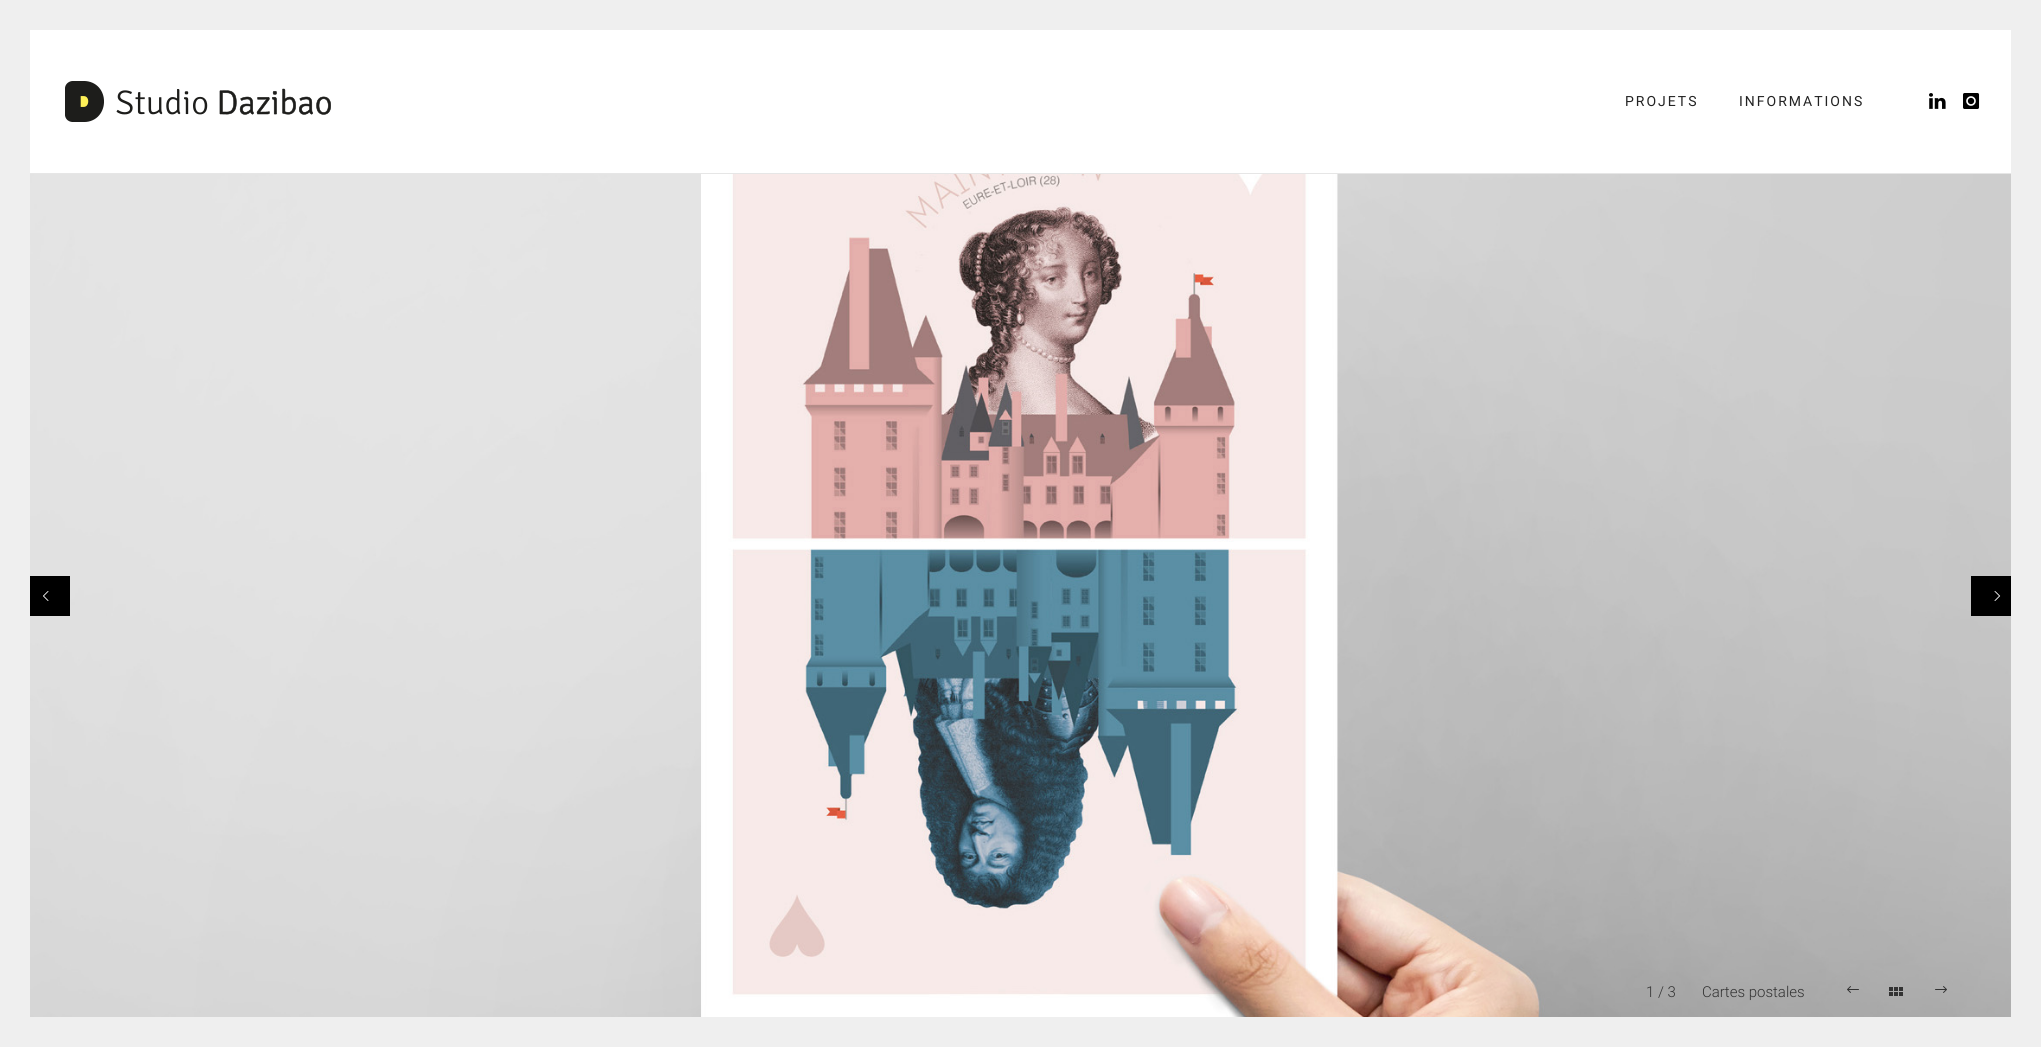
#include <cairo.h>
#include <math.h>
#include <stddef.h>


static void spaced_text(cairo_t *cr, double x, double y, const char *s, double letter, double word) {
    cairo_move_to(cr, x, y);
    while (*s) {
        char ch[5] = {0};
        int n = 0;
        do ch[n++] = *s++; while ((*s & 0xC0) == 0x80);
        cairo_show_text(cr, ch);
        cairo_rel_move_to(cr, letter + word * (*ch == ' '), 0);
    }
}

static void picture(cairo_t *cr, const char *path, double x, double y, double w, double h) {
    cairo_surface_t *image = cairo_image_surface_create_from_png(path);
    cairo_save(cr);
    cairo_set_source_surface(cr, image, x, y);
    cairo_rectangle(cr, x, y, w, h);
    cairo_fill(cr);
    cairo_restore(cr);
    cairo_surface_destroy(image);
}

int main(void) {
    cairo_surface_t *surface = cairo_image_surface_create(CAIRO_FORMAT_RGB24, 2041, 1047);
    cairo_t *cr = cairo_create(surface);
    cairo_font_options_t *options = cairo_font_options_create();
    cairo_font_options_set_hint_metrics(options, CAIRO_HINT_METRICS_OFF);
    cairo_font_options_set_hint_style(options, CAIRO_HINT_STYLE_NONE);
    cairo_set_font_options(cr, options);
    cairo_set_miter_limit(cr, 4);
    cairo_set_source_rgb(cr, 1, 1, 1);
    cairo_paint(cr);
    cairo_set_source_rgb(cr, 0.937, 0.937, 0.937);
    cairo_rectangle(cr, 0, 0, 30, 1047);
    cairo_fill(cr);
    cairo_rectangle(cr, 30, 0, 1981, 30);
    cairo_fill(cr);
    cairo_rectangle(cr, 2011, 0, 30, 1017);
    cairo_fill(cr);
    cairo_rectangle(cr, 30, 1017, 2011, 30);
    cairo_fill(cr);
    picture(cr, "img1.png", 65, 81, 266, 41);
    cairo_select_font_face(cr, "Roboto", CAIRO_FONT_SLANT_NORMAL, CAIRO_FONT_WEIGHT_NORMAL);
    cairo_set_font_size(cr, 14);
    cairo_set_source_rgb(cr, 0.137, 0.137, 0.137);
    spaced_text(cr, 1625, 106, "PROJETS", 2, 0);
    spaced_text(cr, 1739, 106, "INFORMATIONS", 2, 0);
    picture(cr, "img2.png", 1929, 93, 17, 16);
    picture(cr, "img3.png", 1963, 93, 17, 16);
    cairo_set_source_rgb(cr, 0.902, 0.902, 0.902);
    cairo_rectangle(cr, 30, 173, 1981, 1);
    cairo_fill(cr);
    picture(cr, "img4.png", 30, 174, 1981, 843);
    cairo_set_source_rgb(cr, 0, 0, 0);
    cairo_rectangle(cr, 30, 576, 40, 40);
    cairo_fill(cr);
    picture(cr, "img5.png", 43, 591, 6, 10);
    cairo_rectangle(cr, 1971, 576, 40, 40);
    cairo_fill(cr);
    picture(cr, "img6.png", 1994, 591, 7, 10);
    cairo_select_font_face(cr, "Roboto Light", CAIRO_FONT_SLANT_NORMAL, CAIRO_FONT_WEIGHT_NORMAL);
    cairo_set_font_size(cr, 15);
    cairo_set_source_rgb(cr, 0.2, 0.2, 0.2);
    cairo_move_to(cr, 1646, 997);
    cairo_show_text(cr, "1 / 3");
    cairo_move_to(cr, 1702, 997);
    cairo_show_text(cr, "Cartes postales");
    picture(cr, "img7.png", 1847, 986, 12, 7);
    cairo_rectangle(cr, 1889, 987, 4, 4);
    cairo_fill(cr);
    cairo_rectangle(cr, 1894, 987, 4, 4);
    cairo_fill(cr);
    cairo_rectangle(cr, 1899, 987, 4, 4);
    cairo_fill(cr);
    cairo_rectangle(cr, 1889, 992, 4, 4);
    cairo_fill(cr);
    cairo_rectangle(cr, 1894, 992, 4, 4);
    cairo_fill(cr);
    cairo_rectangle(cr, 1899, 992, 4, 4);
    cairo_fill(cr);
    picture(cr, "img8.png", 1935, 986, 12, 7);
    cairo_surface_write_to_png(surface, "page.png");
    cairo_font_options_destroy(options);
    cairo_destroy(cr);
    cairo_surface_destroy(surface);
    return 0;
}
